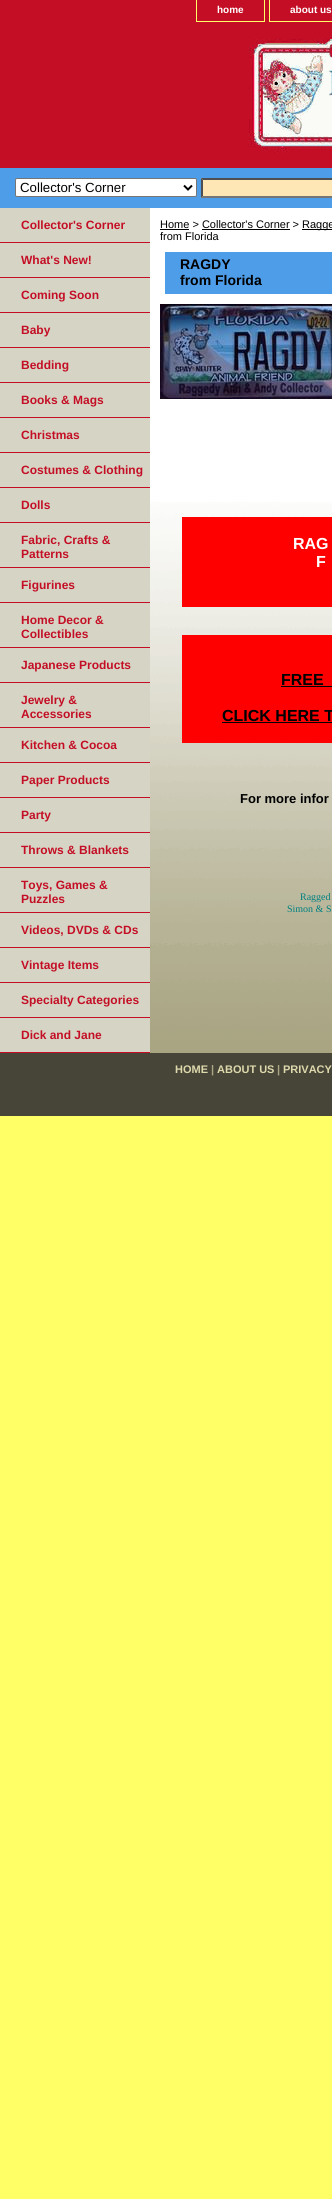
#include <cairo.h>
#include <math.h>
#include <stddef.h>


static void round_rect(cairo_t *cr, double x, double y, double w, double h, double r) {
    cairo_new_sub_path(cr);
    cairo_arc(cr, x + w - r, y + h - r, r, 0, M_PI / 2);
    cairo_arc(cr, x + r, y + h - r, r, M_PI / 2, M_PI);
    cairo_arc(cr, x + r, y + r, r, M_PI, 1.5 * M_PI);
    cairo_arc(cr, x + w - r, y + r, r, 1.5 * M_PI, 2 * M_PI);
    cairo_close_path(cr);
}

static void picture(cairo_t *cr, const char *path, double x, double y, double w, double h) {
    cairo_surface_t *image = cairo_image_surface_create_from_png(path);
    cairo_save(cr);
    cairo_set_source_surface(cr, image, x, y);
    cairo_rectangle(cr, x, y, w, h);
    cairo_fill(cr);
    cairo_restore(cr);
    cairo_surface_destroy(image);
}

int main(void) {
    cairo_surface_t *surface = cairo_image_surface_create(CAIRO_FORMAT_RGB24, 332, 2199);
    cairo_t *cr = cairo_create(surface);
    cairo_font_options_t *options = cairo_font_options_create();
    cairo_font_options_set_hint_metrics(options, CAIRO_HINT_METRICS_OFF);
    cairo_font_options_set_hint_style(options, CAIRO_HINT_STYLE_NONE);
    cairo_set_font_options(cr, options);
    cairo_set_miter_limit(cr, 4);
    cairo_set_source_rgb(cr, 1, 1, 0.4);
    cairo_paint(cr);
    cairo_set_source_rgb(cr, 0.769, 0.055, 0.145);
    cairo_rectangle(cr, 0, 0, 332, 168);
    cairo_fill(cr);
    cairo_set_source_rgb(cr, 1, 1, 0.4);
    cairo_rectangle(cr, 264, 0, 1, 22);
    cairo_fill(cr);
    cairo_rectangle(cr, 196, 21, 69, 1);
    cairo_fill(cr);
    cairo_rectangle(cr, 196, 0, 1, 22);
    cairo_fill(cr);
    cairo_select_font_face(cr, "Liberation Sans", CAIRO_FONT_SLANT_NORMAL, CAIRO_FONT_WEIGHT_BOLD);
    cairo_set_font_size(cr, 10);
    cairo_set_source_rgb(cr, 1, 1, 1);
    cairo_move_to(cr, 217, 13);
    cairo_show_text(cr, "home");
    cairo_set_source_rgb(cr, 1, 1, 0.4);
    cairo_rectangle(cr, 269, 21, 63, 1);
    cairo_fill(cr);
    cairo_rectangle(cr, 269, 0, 1, 22);
    cairo_fill(cr);
    cairo_set_source_rgb(cr, 1, 1, 1);
    cairo_move_to(cr, 290, 13);
    cairo_show_text(cr, "about us");
    picture(cr, "img1.png", 248, 36, 84, 117);
    cairo_set_source_rgb(cr, 0.306, 0.616, 0.91);
    cairo_rectangle(cr, 0, 168, 332, 40);
    cairo_fill(cr);
    cairo_set_source_rgb(cr, 1, 1, 1);
    round_rect(cr, 15.5, 178.5, 181, 18, 1.5);
    cairo_fill_preserve(cr);
    cairo_set_source_rgb(cr, 0.463, 0.463, 0.463);
    cairo_set_line_width(cr, 1);
    cairo_stroke(cr);
    cairo_new_path(cr);
    cairo_move_to(cr, 184, 185.5);
    cairo_line_to(cr, 188, 189.5);
    cairo_line_to(cr, 192, 185.5);
    cairo_set_source_rgb(cr, 0, 0, 0);
    cairo_set_line_width(cr, 2);
    cairo_stroke(cr);
    cairo_select_font_face(cr, "Liberation Sans", CAIRO_FONT_SLANT_NORMAL, CAIRO_FONT_WEIGHT_NORMAL);
    cairo_set_font_size(cr, 13.25);
    cairo_move_to(cr, 20, 192);
    cairo_show_text(cr, "Collector's Corner");
    cairo_set_source_rgb(cr, 1, 0.906, 0.71);
    cairo_rectangle(cr, 201, 178, 131, 20);
    cairo_fill(cr);
    cairo_set_source_rgb(cr, 0.31, 0.31, 0.31);
    cairo_new_path(cr);
    cairo_move_to(cr, 201, 178);
    cairo_line_to(cr, 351, 178);
    cairo_line_to(cr, 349, 180);
    cairo_line_to(cr, 203, 180);
    cairo_close_path(cr);
    cairo_fill(cr);
    cairo_set_source_rgb(cr, 0.463, 0.463, 0.463);
    cairo_new_path(cr);
    cairo_move_to(cr, 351, 198);
    cairo_line_to(cr, 201, 198);
    cairo_line_to(cr, 203, 196);
    cairo_line_to(cr, 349, 196);
    cairo_close_path(cr);
    cairo_fill(cr);
    cairo_set_source_rgb(cr, 0.31, 0.31, 0.31);
    cairo_new_path(cr);
    cairo_move_to(cr, 201, 198);
    cairo_line_to(cr, 201, 178);
    cairo_line_to(cr, 203, 180);
    cairo_line_to(cr, 203, 196);
    cairo_close_path(cr);
    cairo_fill(cr);
    cairo_set_source_rgb(cr, 1, 1, 1);
    cairo_rectangle(cr, 150, 208, 182, 294);
    cairo_fill(cr);
    picture(cr, "img2.png", 150, 502, 182, 551);
    cairo_set_source_rgb(cr, 0.839, 0.835, 0.773);
    cairo_rectangle(cr, 0, 208, 150, 844);
    cairo_fill(cr);
    cairo_set_source_rgb(cr, 0.769, 0.055, 0.145);
    cairo_rectangle(cr, 0, 242, 150, 1);
    cairo_fill(cr);
    cairo_select_font_face(cr, "Liberation Sans", CAIRO_FONT_SLANT_NORMAL, CAIRO_FONT_WEIGHT_BOLD);
    cairo_set_font_size(cr, 12);
    cairo_move_to(cr, 21, 229);
    cairo_show_text(cr, "Collector's Corner");
    cairo_rectangle(cr, 0, 277, 150, 1);
    cairo_fill(cr);
    cairo_move_to(cr, 21, 264);
    cairo_show_text(cr, "What's New!");
    cairo_rectangle(cr, 0, 312, 150, 1);
    cairo_fill(cr);
    cairo_move_to(cr, 21, 299);
    cairo_show_text(cr, "Coming Soon");
    cairo_rectangle(cr, 0, 347, 150, 1);
    cairo_fill(cr);
    cairo_move_to(cr, 21, 334);
    cairo_show_text(cr, "Baby");
    cairo_rectangle(cr, 0, 382, 150, 1);
    cairo_fill(cr);
    cairo_move_to(cr, 21, 369);
    cairo_show_text(cr, "Bedding");
    cairo_rectangle(cr, 0, 417, 150, 1);
    cairo_fill(cr);
    cairo_move_to(cr, 21, 404);
    cairo_show_text(cr, "Books & Mags");
    cairo_rectangle(cr, 0, 452, 150, 1);
    cairo_fill(cr);
    cairo_move_to(cr, 21, 439);
    cairo_show_text(cr, "Christmas");
    cairo_rectangle(cr, 0, 487, 150, 1);
    cairo_fill(cr);
    cairo_move_to(cr, 21, 474);
    cairo_show_text(cr, "Costumes & Clothing");
    cairo_rectangle(cr, 0, 522, 150, 1);
    cairo_fill(cr);
    cairo_move_to(cr, 21, 509);
    cairo_show_text(cr, "Dolls");
    cairo_rectangle(cr, 0, 567, 150, 1);
    cairo_fill(cr);
    cairo_move_to(cr, 21, 544);
    cairo_show_text(cr, "Fabric, Crafts &");
    cairo_move_to(cr, 21, 558);
    cairo_show_text(cr, "Patterns");
    cairo_rectangle(cr, 0, 602, 150, 1);
    cairo_fill(cr);
    cairo_move_to(cr, 21, 589);
    cairo_show_text(cr, "Figurines");
    cairo_rectangle(cr, 0, 647, 150, 1);
    cairo_fill(cr);
    cairo_move_to(cr, 21, 624);
    cairo_show_text(cr, "Home Decor &");
    cairo_move_to(cr, 21, 638);
    cairo_show_text(cr, "Collectibles");
    cairo_rectangle(cr, 0, 682, 150, 1);
    cairo_fill(cr);
    cairo_move_to(cr, 21, 669);
    cairo_show_text(cr, "Japanese Products");
    cairo_rectangle(cr, 0, 727, 150, 1);
    cairo_fill(cr);
    cairo_move_to(cr, 21, 704);
    cairo_show_text(cr, "Jewelry &");
    cairo_move_to(cr, 21, 718);
    cairo_show_text(cr, "Accessories");
    cairo_rectangle(cr, 0, 762, 150, 1);
    cairo_fill(cr);
    cairo_move_to(cr, 21, 749);
    cairo_show_text(cr, "Kitchen & Cocoa");
    cairo_rectangle(cr, 0, 797, 150, 1);
    cairo_fill(cr);
    cairo_move_to(cr, 21, 784);
    cairo_show_text(cr, "Paper Products");
    cairo_rectangle(cr, 0, 832, 150, 1);
    cairo_fill(cr);
    cairo_move_to(cr, 21, 819);
    cairo_show_text(cr, "Party");
    cairo_rectangle(cr, 0, 867, 150, 1);
    cairo_fill(cr);
    cairo_move_to(cr, 21, 854);
    cairo_show_text(cr, "Throws & Blankets");
    cairo_rectangle(cr, 0, 912, 150, 1);
    cairo_fill(cr);
    cairo_move_to(cr, 21, 889);
    cairo_show_text(cr, "Toys, Games &");
    cairo_move_to(cr, 21, 903);
    cairo_show_text(cr, "Puzzles");
    cairo_rectangle(cr, 0, 947, 150, 1);
    cairo_fill(cr);
    cairo_move_to(cr, 21, 934);
    cairo_show_text(cr, "Videos, DVDs & CDs");
    cairo_rectangle(cr, 0, 982, 150, 1);
    cairo_fill(cr);
    cairo_move_to(cr, 21, 969);
    cairo_show_text(cr, "Vintage Items");
    cairo_rectangle(cr, 0, 1017, 150, 1);
    cairo_fill(cr);
    cairo_move_to(cr, 21, 1004);
    cairo_show_text(cr, "Specialty Categories");
    cairo_rectangle(cr, 0, 1052, 150, 1);
    cairo_fill(cr);
    cairo_move_to(cr, 21, 1039);
    cairo_show_text(cr, "Dick and Jane");
    cairo_select_font_face(cr, "Liberation Sans", CAIRO_FONT_SLANT_NORMAL, CAIRO_FONT_WEIGHT_NORMAL);
    cairo_set_font_size(cr, 11);
    cairo_set_source_rgb(cr, 0, 0, 0);
    cairo_move_to(cr, 160, 228);
    cairo_show_text(cr, "Home > Collector's Corner >");
    cairo_rectangle(cr, 160, 229, 29, 1);
    cairo_fill(cr);
    cairo_rectangle(cr, 302, 229, 30, 1);
    cairo_fill(cr);
    cairo_move_to(cr, 302, 228);
    cairo_show_text(cr, "Ragge");
    cairo_rectangle(cr, 202, 229, 88, 1);
    cairo_fill(cr);
    cairo_move_to(cr, 160, 240);
    cairo_show_text(cr, "from Florida");
    cairo_set_source_rgb(cr, 0.306, 0.616, 0.91);
    cairo_rectangle(cr, 165, 252, 167, 42);
    cairo_fill(cr);
    cairo_select_font_face(cr, "Liberation Sans", CAIRO_FONT_SLANT_NORMAL, CAIRO_FONT_WEIGHT_BOLD);
    cairo_set_font_size(cr, 14);
    cairo_set_source_rgb(cr, 0, 0, 0);
    cairo_move_to(cr, 180, 269);
    cairo_show_text(cr, "RAGDY");
    cairo_move_to(cr, 180, 285);
    cairo_show_text(cr, "from Florida");
    picture(cr, "img3.png", 160, 304, 172, 95);
    cairo_set_source_rgb(cr, 1, 0, 0);
    cairo_rectangle(cr, 182, 517, 150, 90);
    cairo_fill(cr);
    cairo_set_font_size(cr, 16);
    cairo_set_source_rgb(cr, 1, 1, 1);
    cairo_move_to(cr, 293, 549);
    cairo_show_text(cr, "RAG");
    cairo_move_to(cr, 316, 567);
    cairo_show_text(cr, "F");
    cairo_set_source_rgb(cr, 1, 0, 0);
    cairo_rectangle(cr, 182, 635, 150, 108);
    cairo_fill(cr);
    cairo_set_source_rgb(cr, 0, 0, 0);
    cairo_move_to(cr, 281, 685);
    cairo_show_text(cr, "FREE");
    cairo_rectangle(cr, 281, 686, 51, 1);
    cairo_fill(cr);
    cairo_move_to(cr, 222, 721);
    cairo_show_text(cr, "CLICK HERE T");
    cairo_rectangle(cr, 222, 722, 110, 1);
    cairo_fill(cr);
    cairo_set_font_size(cr, 13);
    cairo_move_to(cr, 240, 803);
    cairo_show_text(cr, "For more infor");
    cairo_select_font_face(cr, "Liberation Serif", CAIRO_FONT_SLANT_NORMAL, CAIRO_FONT_WEIGHT_NORMAL);
    cairo_set_font_size(cr, 10);
    cairo_set_source_rgb(cr, 0, 0.502, 0.502);
    cairo_move_to(cr, 300, 900);
    cairo_show_text(cr, "Ragged");
    cairo_move_to(cr, 287, 912);
    cairo_show_text(cr, "Simon & S");
    cairo_set_source_rgb(cr, 0.278, 0.271, 0.216);
    cairo_rectangle(cr, 0, 1053, 332, 63);
    cairo_fill(cr);
    cairo_select_font_face(cr, "Liberation Sans", CAIRO_FONT_SLANT_NORMAL, CAIRO_FONT_WEIGHT_BOLD);
    cairo_set_font_size(cr, 11);
    cairo_set_source_rgb(cr, 0.871, 0.851, 0.678);
    cairo_move_to(cr, 175, 1073);
    cairo_show_text(cr, "HOME");
    cairo_set_source_rgb(cr, 0.671, 0.655, 0.525);
    cairo_move_to(cr, 211, 1073);
    cairo_show_text(cr, "|");
    cairo_set_source_rgb(cr, 0.871, 0.851, 0.678);
    cairo_move_to(cr, 217, 1073);
    cairo_show_text(cr, "ABOUT US");
    cairo_set_source_rgb(cr, 0.671, 0.655, 0.525);
    cairo_move_to(cr, 277, 1073);
    cairo_show_text(cr, "|");
    cairo_set_source_rgb(cr, 0.871, 0.851, 0.678);
    cairo_move_to(cr, 283, 1073);
    cairo_show_text(cr, "PRIVACY");
    cairo_surface_write_to_png(surface, "page.png");
    cairo_font_options_destroy(options);
    cairo_destroy(cr);
    cairo_surface_destroy(surface);
    return 0;
}
